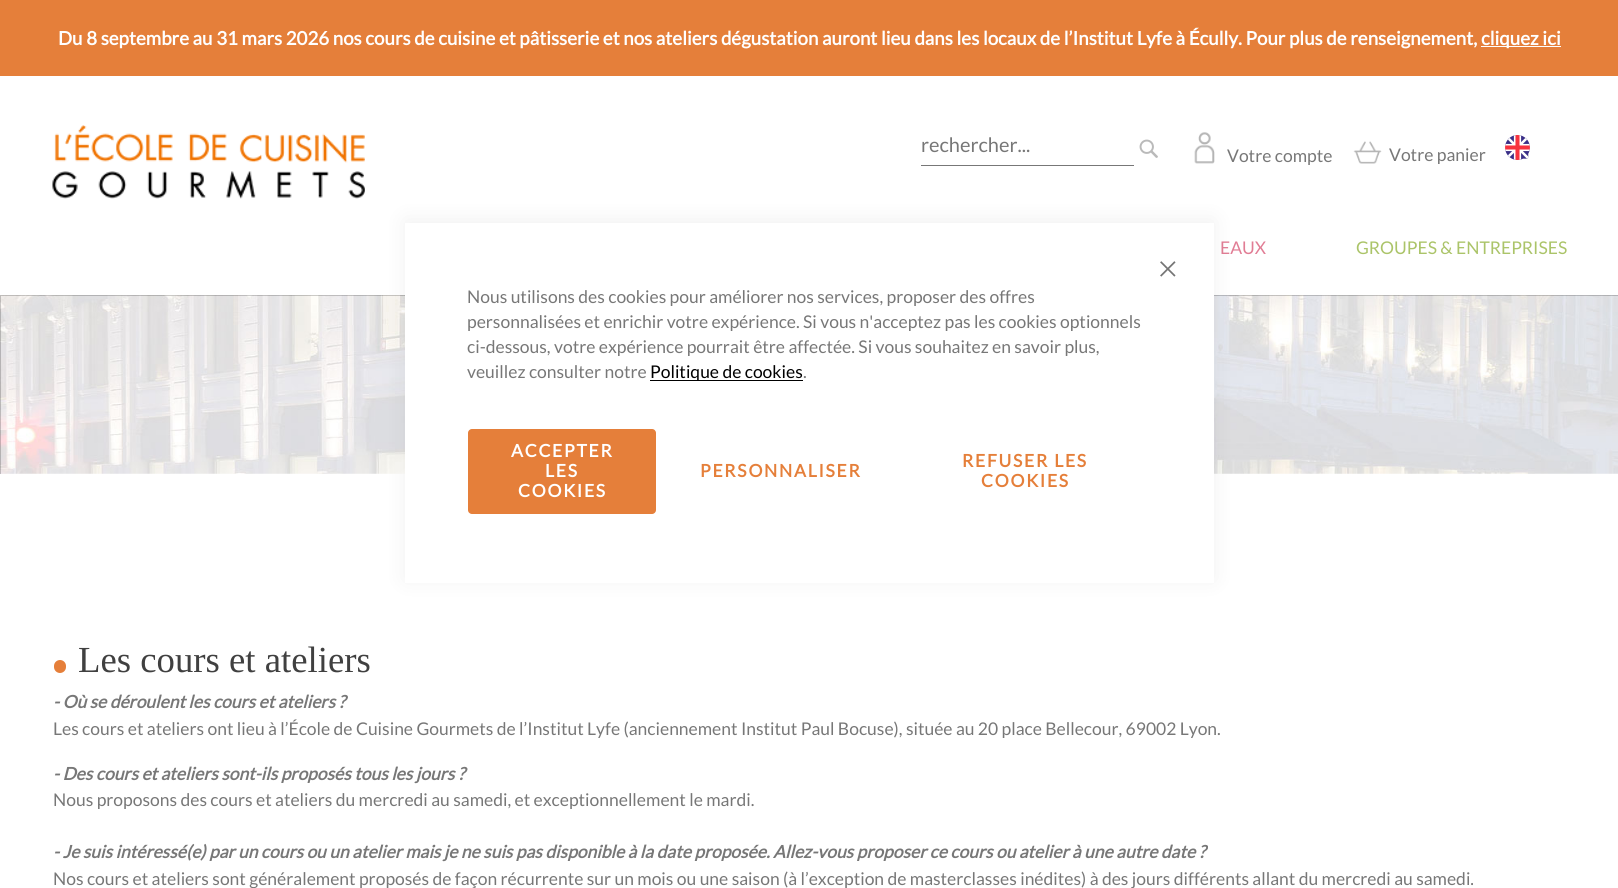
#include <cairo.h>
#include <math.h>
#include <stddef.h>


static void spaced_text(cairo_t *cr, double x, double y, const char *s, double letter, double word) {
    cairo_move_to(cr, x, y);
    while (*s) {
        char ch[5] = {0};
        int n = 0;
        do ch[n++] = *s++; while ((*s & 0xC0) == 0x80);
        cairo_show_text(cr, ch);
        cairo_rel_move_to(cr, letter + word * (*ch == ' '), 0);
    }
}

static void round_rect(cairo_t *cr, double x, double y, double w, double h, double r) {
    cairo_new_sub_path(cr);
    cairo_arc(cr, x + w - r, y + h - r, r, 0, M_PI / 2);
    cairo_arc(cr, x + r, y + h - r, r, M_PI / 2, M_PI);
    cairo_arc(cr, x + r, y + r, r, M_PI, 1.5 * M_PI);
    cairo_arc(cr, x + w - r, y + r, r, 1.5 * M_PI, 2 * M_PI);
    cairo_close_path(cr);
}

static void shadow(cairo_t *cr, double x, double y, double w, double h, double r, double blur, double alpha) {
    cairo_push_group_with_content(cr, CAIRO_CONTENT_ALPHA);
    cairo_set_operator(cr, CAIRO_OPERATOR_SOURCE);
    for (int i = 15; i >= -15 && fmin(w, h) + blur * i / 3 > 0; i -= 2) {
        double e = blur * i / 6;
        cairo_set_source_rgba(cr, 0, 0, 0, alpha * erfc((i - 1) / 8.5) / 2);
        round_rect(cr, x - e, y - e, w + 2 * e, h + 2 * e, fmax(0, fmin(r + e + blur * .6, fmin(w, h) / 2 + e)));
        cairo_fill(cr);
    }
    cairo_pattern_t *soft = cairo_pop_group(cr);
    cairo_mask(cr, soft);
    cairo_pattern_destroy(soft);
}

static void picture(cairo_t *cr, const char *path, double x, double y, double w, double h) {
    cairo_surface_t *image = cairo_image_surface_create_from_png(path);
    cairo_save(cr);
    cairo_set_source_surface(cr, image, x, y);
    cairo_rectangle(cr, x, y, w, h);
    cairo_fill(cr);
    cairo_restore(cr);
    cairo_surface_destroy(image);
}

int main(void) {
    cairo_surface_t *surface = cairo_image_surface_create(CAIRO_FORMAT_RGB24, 1618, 888);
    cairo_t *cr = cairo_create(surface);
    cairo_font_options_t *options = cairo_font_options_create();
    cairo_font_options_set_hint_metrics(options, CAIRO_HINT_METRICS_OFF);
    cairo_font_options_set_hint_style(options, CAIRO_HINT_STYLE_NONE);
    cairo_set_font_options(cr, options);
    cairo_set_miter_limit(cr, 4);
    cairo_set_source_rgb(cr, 1, 1, 1);
    cairo_paint(cr);
    cairo_set_source_rgb(cr, 0.898, 0.498, 0.227);
    cairo_rectangle(cr, 0, 0, 1618, 76);
    cairo_fill(cr);
    cairo_select_font_face(cr, "Lato", CAIRO_FONT_SLANT_NORMAL, CAIRO_FONT_WEIGHT_BOLD);
    cairo_set_font_size(cr, 18.75);
    cairo_set_source_rgb(cr, 1, 1, 1);
    cairo_move_to(cr, 58, 45);
    cairo_show_text(cr, "Du 8 septembre au 31 mars 2026 nos cours de cuisine et pâtisserie et nos ateliers dégustation auront lieu dans les locaux de l’Institut Lyfe à Écully. Pour plus de renseignement,");
    cairo_rectangle(cr, 1481, 46, 80, 1);
    cairo_fill(cr);
    cairo_move_to(cr, 1481, 45);
    cairo_show_text(cr, "cliquez ici");
    picture(cr, "img1.png", 52, 125, 313, 74);
    cairo_select_font_face(cr, "Lato", CAIRO_FONT_SLANT_NORMAL, CAIRO_FONT_WEIGHT_NORMAL);
    cairo_set_font_size(cr, 20);
    cairo_set_source_rgb(cr, 0.467, 0.467, 0.467);
    cairo_move_to(cr, 921, 152);
    cairo_show_text(cr, "rechercher...");
    picture(cr, "img2.png", 1139, 139, 19, 19);
    cairo_rectangle(cr, 921, 165, 213, 1);
    cairo_fill(cr);
    picture(cr, "img3.png", 1505, 135, 25, 25);
    picture(cr, "img4.png", 1194, 132, 21, 32);
    cairo_set_font_size(cr, 17.5);
    cairo_move_to(cr, 1227, 162);
    cairo_show_text(cr, "Votre compte");
    picture(cr, "img5.png", 1353, 141, 29, 23);
    cairo_move_to(cr, 1389, 161);
    cairo_show_text(cr, "Votre panier");
    cairo_set_source_rgb(cr, 0.882, 0.49, 0.584);
    cairo_move_to(cr, 1220, 254);
    cairo_show_text(cr, "EAUX");
    cairo_set_source_rgb(cr, 0.671, 0.769, 0.412);
    cairo_move_to(cr, 1356, 254);
    cairo_show_text(cr, "GROUPES & ENTREPRISES");
    picture(cr, "img6.png", 0, 295, 1618, 179);
    cairo_save(cr);
    cairo_rectangle(cr, 0, 295, 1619, 179);
    cairo_clip(cr);
    cairo_set_source_rgba(cr, 0, 0, 0, 0.2);
    cairo_set_fill_rule(cr, CAIRO_FILL_RULE_EVEN_ODD);
    cairo_new_path(cr);
    cairo_move_to(cr, -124, 171);
    cairo_line_to(cr, 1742, 171);
    cairo_line_to(cr, 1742, 598);
    cairo_line_to(cr, -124, 598);
    cairo_close_path(cr);
    cairo_move_to(cr, 1, 296);
    cairo_line_to(cr, 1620, 296);
    cairo_line_to(cr, 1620, 475);
    cairo_line_to(cr, 1, 475);
    cairo_close_path(cr);
    cairo_fill(cr);
    cairo_restore(cr);
    cairo_set_source_rgb(cr, 0.898, 0.498, 0.227);
    round_rect(cr, 54, 660, 12, 13, 6);
    cairo_fill(cr);
    cairo_select_font_face(cr, "Liberation Serif", CAIRO_FONT_SLANT_NORMAL, CAIRO_FONT_WEIGHT_NORMAL);
    cairo_set_font_size(cr, 36.75);
    cairo_set_source_rgb(cr, 0.251, 0.251, 0.251);
    cairo_move_to(cr, 78, 672);
    cairo_show_text(cr, "Les cours et ateliers");
    cairo_select_font_face(cr, "Lato", CAIRO_FONT_SLANT_ITALIC, CAIRO_FONT_WEIGHT_BOLD);
    cairo_set_font_size(cr, 17.5);
    cairo_set_source_rgb(cr, 0.467, 0.467, 0.467);
    cairo_move_to(cr, 53, 708);
    cairo_show_text(cr, "- Où se déroulent les cours et ateliers ?");
    cairo_select_font_face(cr, "Lato", CAIRO_FONT_SLANT_NORMAL, CAIRO_FONT_WEIGHT_NORMAL);
    cairo_move_to(cr, 53, 735);
    cairo_show_text(cr, "Les cours et ateliers ont lieu à l’École de Cuisine Gourmets de l’Institut Lyfe (anciennement Institut Paul Bocuse), située au 20 place Bellecour, 69002 Lyon.");
    cairo_select_font_face(cr, "Lato", CAIRO_FONT_SLANT_ITALIC, CAIRO_FONT_WEIGHT_BOLD);
    cairo_move_to(cr, 53, 780);
    cairo_show_text(cr, "- Des cours et ateliers sont-ils proposés tous les jours ?");
    cairo_select_font_face(cr, "Lato", CAIRO_FONT_SLANT_NORMAL, CAIRO_FONT_WEIGHT_NORMAL);
    cairo_move_to(cr, 53, 806);
    cairo_show_text(cr, "Nous proposons des cours et ateliers du mercredi au samedi, et exceptionnellement le mardi.");
    cairo_select_font_face(cr, "Lato", CAIRO_FONT_SLANT_ITALIC, CAIRO_FONT_WEIGHT_BOLD);
    cairo_move_to(cr, 53, 858);
    cairo_show_text(cr, "- Je suis intéressé(e) par un cours ou un atelier mais je ne suis pas disponible à la date proposée. Allez-vous proposer ce cours ou atelier à une autre date ?");
    cairo_select_font_face(cr, "Lato", CAIRO_FONT_SLANT_NORMAL, CAIRO_FONT_WEIGHT_NORMAL);
    cairo_move_to(cr, 53, 885);
    cairo_show_text(cr, "Nos cours et ateliers sont généralement proposés de façon récurrente sur un mois ou une saison (à l’exception de masterclasses inédites) à des jours différents allant du mercredi au samedi.");
    cairo_set_source_rgb(cr, 0, 0, 0);
    shadow(cr, 405, 220, 809, 360, 0, 11, 0.06);
    cairo_set_source_rgb(cr, 1, 1, 1);
    cairo_rectangle(cr, 405, 223, 809, 360);
    cairo_fill(cr);
    picture(cr, "img7.png", 1160, 261, 16, 16);
    cairo_set_source_rgb(cr, 0.467, 0.467, 0.467);
    cairo_move_to(cr, 467, 303);
    cairo_show_text(cr, "Nous utilisons des cookies pour améliorer nos services, proposer des offres");
    cairo_move_to(cr, 467, 328);
    cairo_show_text(cr, "personnalisées et enrichir votre expérience. Si vous n'acceptez pas les cookies optionnels");
    cairo_move_to(cr, 467, 353);
    cairo_show_text(cr, "ci-dessous, votre expérience pourrait être affectée. Si vous souhaitez en savoir plus,");
    cairo_move_to(cr, 467, 378);
    cairo_show_text(cr, "veuillez consulter notre");
    cairo_set_source_rgb(cr, 0, 0, 0);
    cairo_rectangle(cr, 650, 380, 153, 1);
    cairo_fill(cr);
    cairo_move_to(cr, 650, 378);
    cairo_show_text(cr, "Politique de cookies");
    cairo_set_source_rgb(cr, 0.467, 0.467, 0.467);
    cairo_move_to(cr, 803, 378);
    cairo_show_text(cr, ".");
    cairo_set_source_rgb(cr, 0.898, 0.498, 0.227);
    round_rect(cr, 468, 429, 188, 85, 4);
    cairo_fill(cr);
    cairo_select_font_face(cr, "Lato", CAIRO_FONT_SLANT_NORMAL, CAIRO_FONT_WEIGHT_BOLD);
    cairo_set_source_rgb(cr, 1, 1, 1);
    spaced_text(cr, 511, 457, "ACCEPTER", 1.75, 0);
    spaced_text(cr, 545, 477, "LES", 1.75, 0);
    spaced_text(cr, 518, 497, "COOKIES", 1.75, 0);
    cairo_set_source_rgb(cr, 0.898, 0.498, 0.227);
    spaced_text(cr, 700, 477, "PERSONNALISER", 1.75, 0);
    spaced_text(cr, 962, 467, "REFUSER LES", 1.75, 0);
    spaced_text(cr, 981, 487, "COOKIES", 1.75, 0);
    cairo_surface_write_to_png(surface, "page.png");
    cairo_font_options_destroy(options);
    cairo_destroy(cr);
    cairo_surface_destroy(surface);
    return 0;
}
